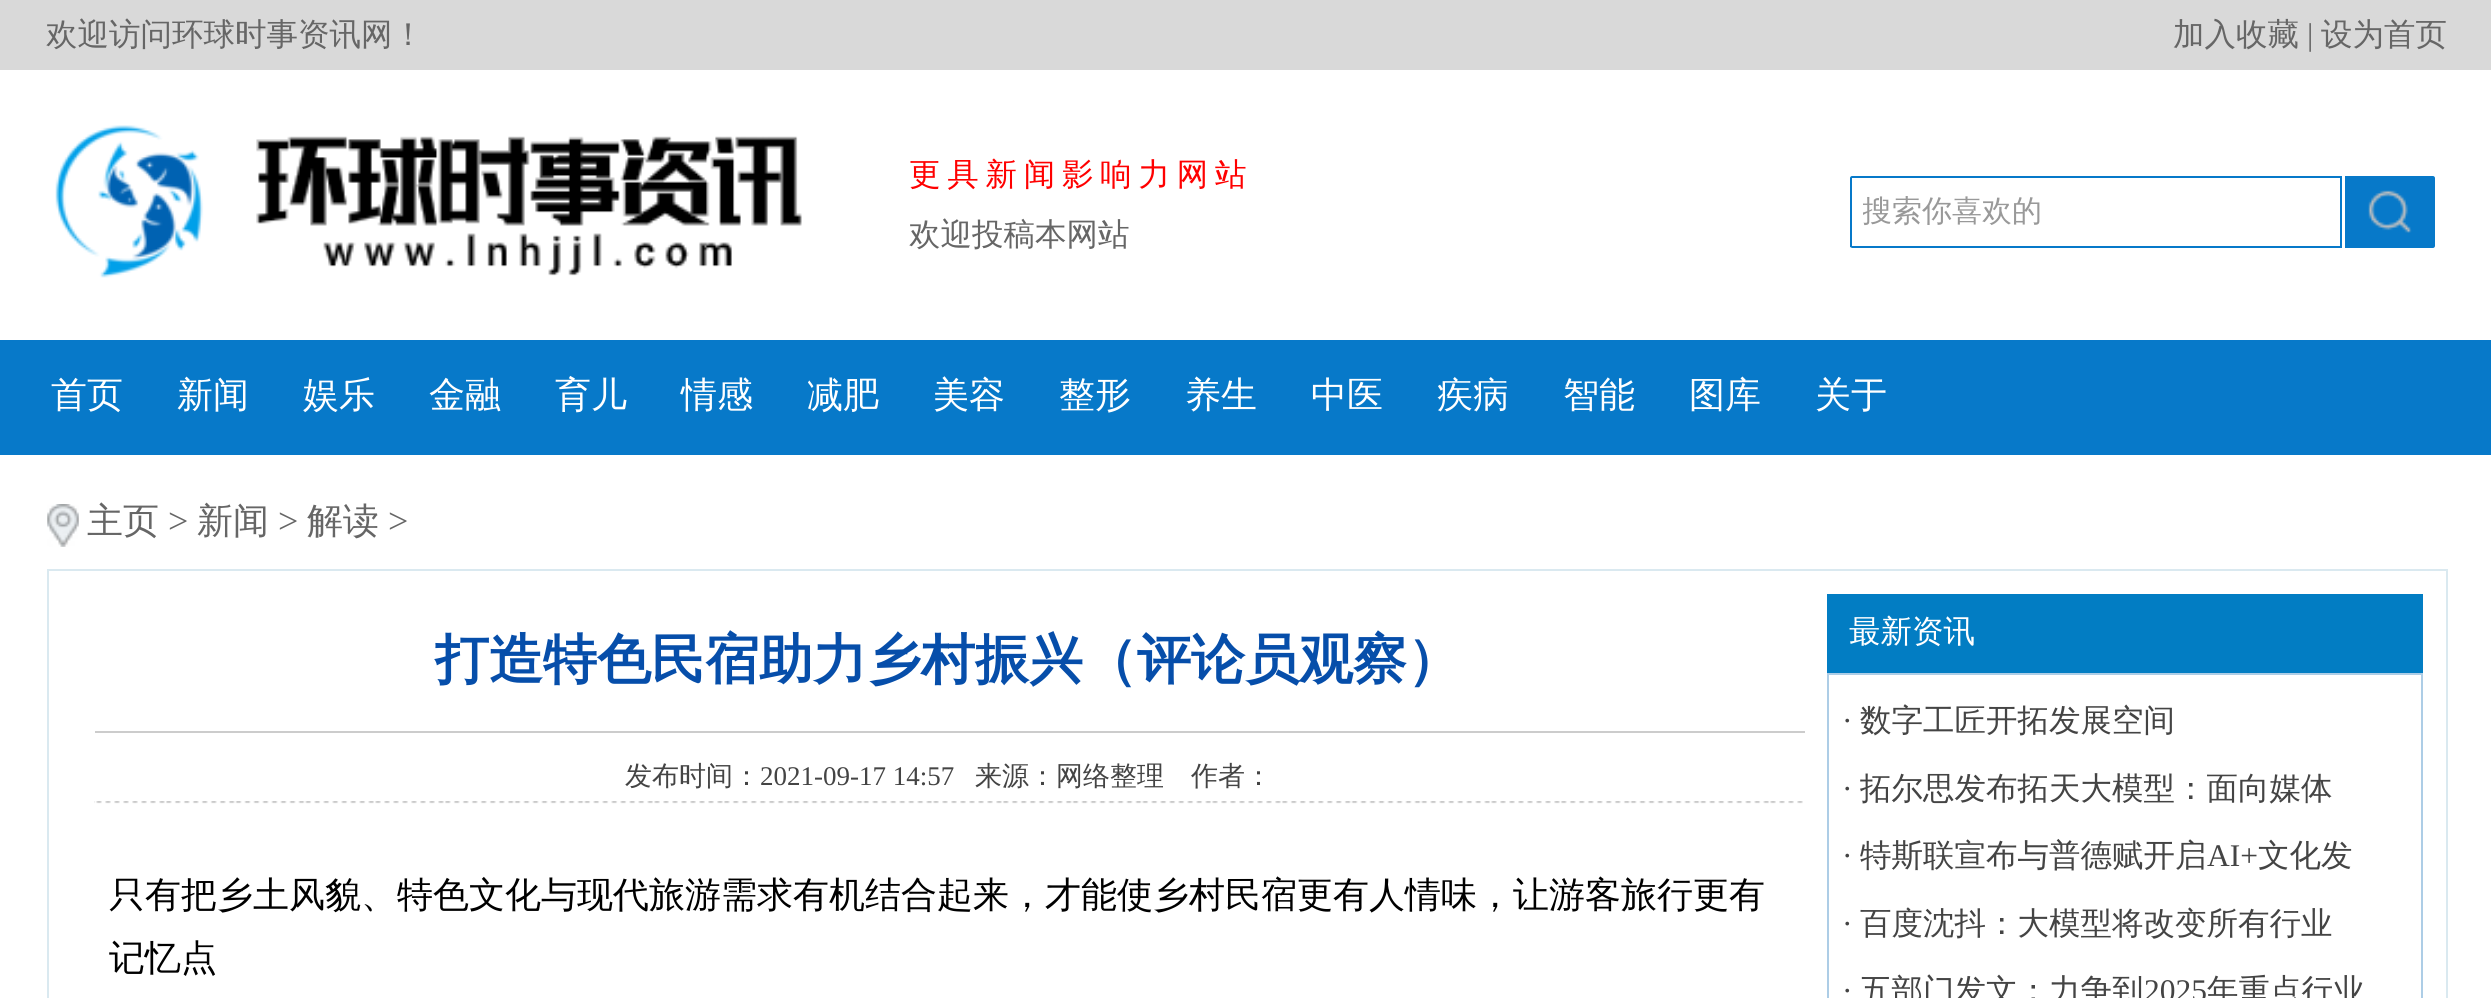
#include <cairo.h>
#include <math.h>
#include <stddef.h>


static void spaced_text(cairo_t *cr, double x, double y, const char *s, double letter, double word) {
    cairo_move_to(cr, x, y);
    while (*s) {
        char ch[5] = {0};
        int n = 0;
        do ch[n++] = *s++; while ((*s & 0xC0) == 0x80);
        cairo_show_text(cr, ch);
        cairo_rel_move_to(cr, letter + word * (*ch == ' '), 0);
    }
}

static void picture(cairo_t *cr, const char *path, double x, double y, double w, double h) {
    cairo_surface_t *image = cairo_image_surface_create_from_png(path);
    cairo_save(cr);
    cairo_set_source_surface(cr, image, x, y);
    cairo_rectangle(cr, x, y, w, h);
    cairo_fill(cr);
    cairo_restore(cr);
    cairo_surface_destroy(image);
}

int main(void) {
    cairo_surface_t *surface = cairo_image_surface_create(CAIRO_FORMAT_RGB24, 2491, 998);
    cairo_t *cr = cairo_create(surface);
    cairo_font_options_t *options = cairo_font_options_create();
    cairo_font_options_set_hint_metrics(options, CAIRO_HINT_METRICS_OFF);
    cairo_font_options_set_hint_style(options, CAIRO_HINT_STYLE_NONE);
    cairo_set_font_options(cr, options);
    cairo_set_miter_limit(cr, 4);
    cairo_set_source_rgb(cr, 1, 1, 1);
    cairo_paint(cr);
    cairo_set_source_rgb(cr, 0.851, 0.851, 0.851);
    cairo_rectangle(cr, 0, 0, 2491, 70);
    cairo_fill(cr);
    cairo_select_font_face(cr, "WenQuanYi Zen Hei Medium", CAIRO_FONT_SLANT_NORMAL, CAIRO_FONT_WEIGHT_NORMAL);
    cairo_set_font_size(cr, 31.5);
    cairo_set_source_rgb(cr, 0.4, 0.4, 0.4);
    cairo_move_to(cr, 46, 45);
    cairo_show_text(cr, "欢迎访问环球时事资讯网！");
    cairo_move_to(cr, 2173, 45);
    cairo_show_text(cr, "加入收藏");
    cairo_select_font_face(cr, "Liberation Serif", CAIRO_FONT_SLANT_NORMAL, CAIRO_FONT_WEIGHT_NORMAL);
    cairo_move_to(cr, 2307, 45);
    cairo_show_text(cr, "|");
    cairo_select_font_face(cr, "WenQuanYi Zen Hei Medium", CAIRO_FONT_SLANT_NORMAL, CAIRO_FONT_WEIGHT_NORMAL);
    cairo_move_to(cr, 2321, 45);
    cairo_show_text(cr, "设为首页");
    picture(cr, "img1.png", 55, 125, 747, 153);
    cairo_set_source_rgb(cr, 1, 0, 0);
    spaced_text(cr, 909, 185, "更具新闻影响力网站", 6.75, 0);
    cairo_set_source_rgb(cr, 0.4, 0.4, 0.4);
    cairo_move_to(cr, 909, 245);
    cairo_show_text(cr, "欢迎投稿本网站");
    cairo_set_source_rgb(cr, 0.031, 0.475, 0.788);
    cairo_set_fill_rule(cr, CAIRO_FILL_RULE_EVEN_ODD);
    cairo_new_path(cr);
    cairo_move_to(cr, 1852, 176);
    cairo_curve_to(cr, 1851, 176, 1850, 177, 1850, 178);
    cairo_line_to(cr, 1850, 247);
    cairo_line_to(cr, 1852, 248);
    cairo_line_to(cr, 2342, 248);
    cairo_line_to(cr, 2342, 176);
    cairo_close_path(cr);
    cairo_move_to(cr, 1852, 178);
    cairo_line_to(cr, 1852, 246);
    cairo_line_to(cr, 2340, 246);
    cairo_line_to(cr, 2340, 178);
    cairo_close_path(cr);
    cairo_fill(cr);
    cairo_save(cr);
    cairo_set_fill_rule(cr, CAIRO_FILL_RULE_WINDING);
    cairo_rectangle(cr, 1863, 180, 473, 63);
    cairo_clip(cr);
    cairo_set_font_size(cr, 30);
    cairo_set_source_rgb(cr, 0.6, 0.6, 0.6);
    cairo_move_to(cr, 1862, 221);
    cairo_show_text(cr, "搜索你喜欢的");
    cairo_restore(cr);
    cairo_new_path(cr);
    cairo_move_to(cr, 2345, 176);
    cairo_line_to(cr, 2433, 176);
    cairo_curve_to(cr, 2434, 176, 2435, 177, 2435, 178);
    cairo_line_to(cr, 2435, 246);
    cairo_curve_to(cr, 2435, 247, 2434, 248, 2433, 248);
    cairo_line_to(cr, 2345, 248);
    cairo_close_path(cr);
    cairo_fill(cr);
    picture(cr, "img2.png", 2368, 190, 44, 43);
    cairo_rectangle(cr, 0, 340, 2491, 115);
    cairo_fill(cr);
    cairo_set_font_size(cr, 36);
    cairo_set_source_rgb(cr, 1, 1, 1);
    cairo_move_to(cr, 51, 407);
    cairo_show_text(cr, "首页");
    cairo_move_to(cr, 177, 407);
    cairo_show_text(cr, "新闻");
    cairo_move_to(cr, 303, 407);
    cairo_show_text(cr, "娱乐");
    cairo_move_to(cr, 429, 407);
    cairo_show_text(cr, "金融");
    cairo_move_to(cr, 555, 407);
    cairo_show_text(cr, "育儿");
    cairo_move_to(cr, 681, 407);
    cairo_show_text(cr, "情感");
    cairo_move_to(cr, 807, 407);
    cairo_show_text(cr, "减肥");
    cairo_move_to(cr, 933, 407);
    cairo_show_text(cr, "美容");
    cairo_move_to(cr, 1059, 407);
    cairo_show_text(cr, "整形");
    cairo_move_to(cr, 1185, 407);
    cairo_show_text(cr, "养生");
    cairo_move_to(cr, 1311, 407);
    cairo_show_text(cr, "中医");
    cairo_move_to(cr, 1437, 407);
    cairo_show_text(cr, "疾病");
    cairo_move_to(cr, 1563, 407);
    cairo_show_text(cr, "智能");
    cairo_move_to(cr, 1689, 407);
    cairo_show_text(cr, "图库");
    cairo_move_to(cr, 1815, 407);
    cairo_show_text(cr, "关于");
    picture(cr, "img3.png", 47, 504, 32, 43);
    cairo_set_source_rgb(cr, 0.4, 0.4, 0.4);
    cairo_move_to(cr, 87, 533);
    cairo_show_text(cr, "主页");
    cairo_select_font_face(cr, "Liberation Serif", CAIRO_FONT_SLANT_NORMAL, CAIRO_FONT_WEIGHT_NORMAL);
    cairo_move_to(cr, 168, 533);
    cairo_show_text(cr, ">");
    cairo_select_font_face(cr, "WenQuanYi Zen Hei Medium", CAIRO_FONT_SLANT_NORMAL, CAIRO_FONT_WEIGHT_NORMAL);
    cairo_move_to(cr, 197, 533);
    cairo_show_text(cr, "新闻");
    cairo_select_font_face(cr, "Liberation Serif", CAIRO_FONT_SLANT_NORMAL, CAIRO_FONT_WEIGHT_NORMAL);
    cairo_move_to(cr, 278, 533);
    cairo_show_text(cr, ">");
    cairo_select_font_face(cr, "WenQuanYi Zen Hei Medium", CAIRO_FONT_SLANT_NORMAL, CAIRO_FONT_WEIGHT_NORMAL);
    cairo_move_to(cr, 307, 533);
    cairo_show_text(cr, "解读");
    cairo_select_font_face(cr, "Liberation Serif", CAIRO_FONT_SLANT_NORMAL, CAIRO_FONT_WEIGHT_NORMAL);
    cairo_move_to(cr, 388, 533);
    cairo_show_text(cr, ">");
    cairo_rectangle(cr, 48, 570, 2399, 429);
    cairo_set_source_rgb(cr, 0.855, 0.914, 0.941);
    cairo_stroke(cr);
    cairo_select_font_face(cr, "WenQuanYi Zen Hei", CAIRO_FONT_SLANT_NORMAL, CAIRO_FONT_WEIGHT_BOLD);
    cairo_set_font_size(cr, 54);
    cairo_set_source_rgb(cr, 0.027, 0.306, 0.667);
    cairo_move_to(cr, 435, 678);
    cairo_show_text(cr, "打造特色民宿助力乡村振兴（评论员观察）");
    cairo_set_source_rgb(cr, 0.8, 0.8, 0.8);
    cairo_rectangle(cr, 95, 731, 1710, 2);
    cairo_fill(cr);
    cairo_select_font_face(cr, "WenQuanYi Zen Hei Medium", CAIRO_FONT_SLANT_NORMAL, CAIRO_FONT_WEIGHT_NORMAL);
    cairo_set_font_size(cr, 27);
    cairo_set_source_rgb(cr, 0.267, 0.267, 0.267);
    cairo_move_to(cr, 625, 785);
    cairo_show_text(cr, "发布时间：");
    cairo_select_font_face(cr, "Liberation Serif", CAIRO_FONT_SLANT_NORMAL, CAIRO_FONT_WEIGHT_NORMAL);
    cairo_move_to(cr, 760, 785);
    cairo_show_text(cr, "2021-09-17 14:57");
    cairo_select_font_face(cr, "WenQuanYi Zen Hei Medium", CAIRO_FONT_SLANT_NORMAL, CAIRO_FONT_WEIGHT_NORMAL);
    cairo_move_to(cr, 975, 785);
    cairo_show_text(cr, "来源：网络整理");
    cairo_move_to(cr, 1191, 785);
    cairo_show_text(cr, "作者：");
    picture(cr, "img4.png", 94, 801, 1709, 3);
    cairo_set_font_size(cr, 36);
    cairo_set_source_rgb(cr, 0, 0, 0);
    cairo_move_to(cr, 109, 907);
    cairo_show_text(cr, "只有把乡土风貌、特色文化与现代旅游需求有机结合起来，才能使乡村民宿更有人情味，让游客旅行更有");
    cairo_move_to(cr, 109, 970);
    cairo_show_text(cr, "记忆点");
    cairo_set_source_rgb(cr, 0.008, 0.49, 0.765);
    cairo_rectangle(cr, 1827, 594, 596, 79);
    cairo_fill(cr);
    cairo_set_font_size(cr, 31.5);
    cairo_set_source_rgb(cr, 1, 1, 1);
    cairo_move_to(cr, 1849, 642);
    cairo_show_text(cr, "最新资讯");
    cairo_set_source_rgb(cr, 0.678, 0.804, 0.902);
    cairo_rectangle(cr, 1827, 673, 596, 325);
    cairo_fill(cr);
    cairo_set_source_rgb(cr, 1, 1, 1);
    cairo_rectangle(cr, 1829, 675, 592, 323);
    cairo_fill(cr);
    cairo_select_font_face(cr, "Liberation Serif", CAIRO_FONT_SLANT_NORMAL, CAIRO_FONT_WEIGHT_NORMAL);
    cairo_set_source_rgb(cr, 0.267, 0.267, 0.267);
    cairo_move_to(cr, 1842, 731);
    cairo_show_text(cr, "·");
    cairo_select_font_face(cr, "WenQuanYi Zen Hei Medium", CAIRO_FONT_SLANT_NORMAL, CAIRO_FONT_WEIGHT_NORMAL);
    cairo_move_to(cr, 1860, 731);
    cairo_show_text(cr, "数字工匠开拓发展空间");
    cairo_select_font_face(cr, "Liberation Serif", CAIRO_FONT_SLANT_NORMAL, CAIRO_FONT_WEIGHT_NORMAL);
    cairo_move_to(cr, 1842, 799);
    cairo_show_text(cr, "·");
    cairo_select_font_face(cr, "WenQuanYi Zen Hei Medium", CAIRO_FONT_SLANT_NORMAL, CAIRO_FONT_WEIGHT_NORMAL);
    cairo_move_to(cr, 1860, 799);
    cairo_show_text(cr, "拓尔思发布拓天大模型：面向媒体");
    cairo_select_font_face(cr, "Liberation Serif", CAIRO_FONT_SLANT_NORMAL, CAIRO_FONT_WEIGHT_NORMAL);
    cairo_move_to(cr, 1842, 866);
    cairo_show_text(cr, "·");
    cairo_select_font_face(cr, "WenQuanYi Zen Hei Medium", CAIRO_FONT_SLANT_NORMAL, CAIRO_FONT_WEIGHT_NORMAL);
    cairo_move_to(cr, 1860, 866);
    cairo_show_text(cr, "特斯联宣布与普德赋开启");
    cairo_select_font_face(cr, "Liberation Serif", CAIRO_FONT_SLANT_NORMAL, CAIRO_FONT_WEIGHT_NORMAL);
    cairo_move_to(cr, 2207, 866);
    cairo_show_text(cr, "AI+");
    cairo_select_font_face(cr, "WenQuanYi Zen Hei Medium", CAIRO_FONT_SLANT_NORMAL, CAIRO_FONT_WEIGHT_NORMAL);
    cairo_move_to(cr, 2258, 866);
    cairo_show_text(cr, "文化发");
    cairo_select_font_face(cr, "Liberation Serif", CAIRO_FONT_SLANT_NORMAL, CAIRO_FONT_WEIGHT_NORMAL);
    cairo_move_to(cr, 1842, 934);
    cairo_show_text(cr, "·");
    cairo_select_font_face(cr, "WenQuanYi Zen Hei Medium", CAIRO_FONT_SLANT_NORMAL, CAIRO_FONT_WEIGHT_NORMAL);
    cairo_move_to(cr, 1860, 934);
    cairo_show_text(cr, "百度沈抖：大模型将改变所有行业");
    cairo_select_font_face(cr, "Liberation Serif", CAIRO_FONT_SLANT_NORMAL, CAIRO_FONT_WEIGHT_NORMAL);
    cairo_move_to(cr, 1842, 1001);
    cairo_show_text(cr, "·");
    cairo_select_font_face(cr, "WenQuanYi Zen Hei Medium", CAIRO_FONT_SLANT_NORMAL, CAIRO_FONT_WEIGHT_NORMAL);
    cairo_move_to(cr, 1860, 1001);
    cairo_show_text(cr, "五部门发文：力争到");
    cairo_select_font_face(cr, "Liberation Serif", CAIRO_FONT_SLANT_NORMAL, CAIRO_FONT_WEIGHT_NORMAL);
    cairo_move_to(cr, 2144, 1001);
    cairo_show_text(cr, "2025");
    cairo_select_font_face(cr, "WenQuanYi Zen Hei Medium", CAIRO_FONT_SLANT_NORMAL, CAIRO_FONT_WEIGHT_NORMAL);
    cairo_move_to(cr, 2207, 1001);
    cairo_show_text(cr, "年重点行业");
    cairo_surface_write_to_png(surface, "page.png");
    cairo_font_options_destroy(options);
    cairo_destroy(cr);
    cairo_surface_destroy(surface);
    return 0;
}
